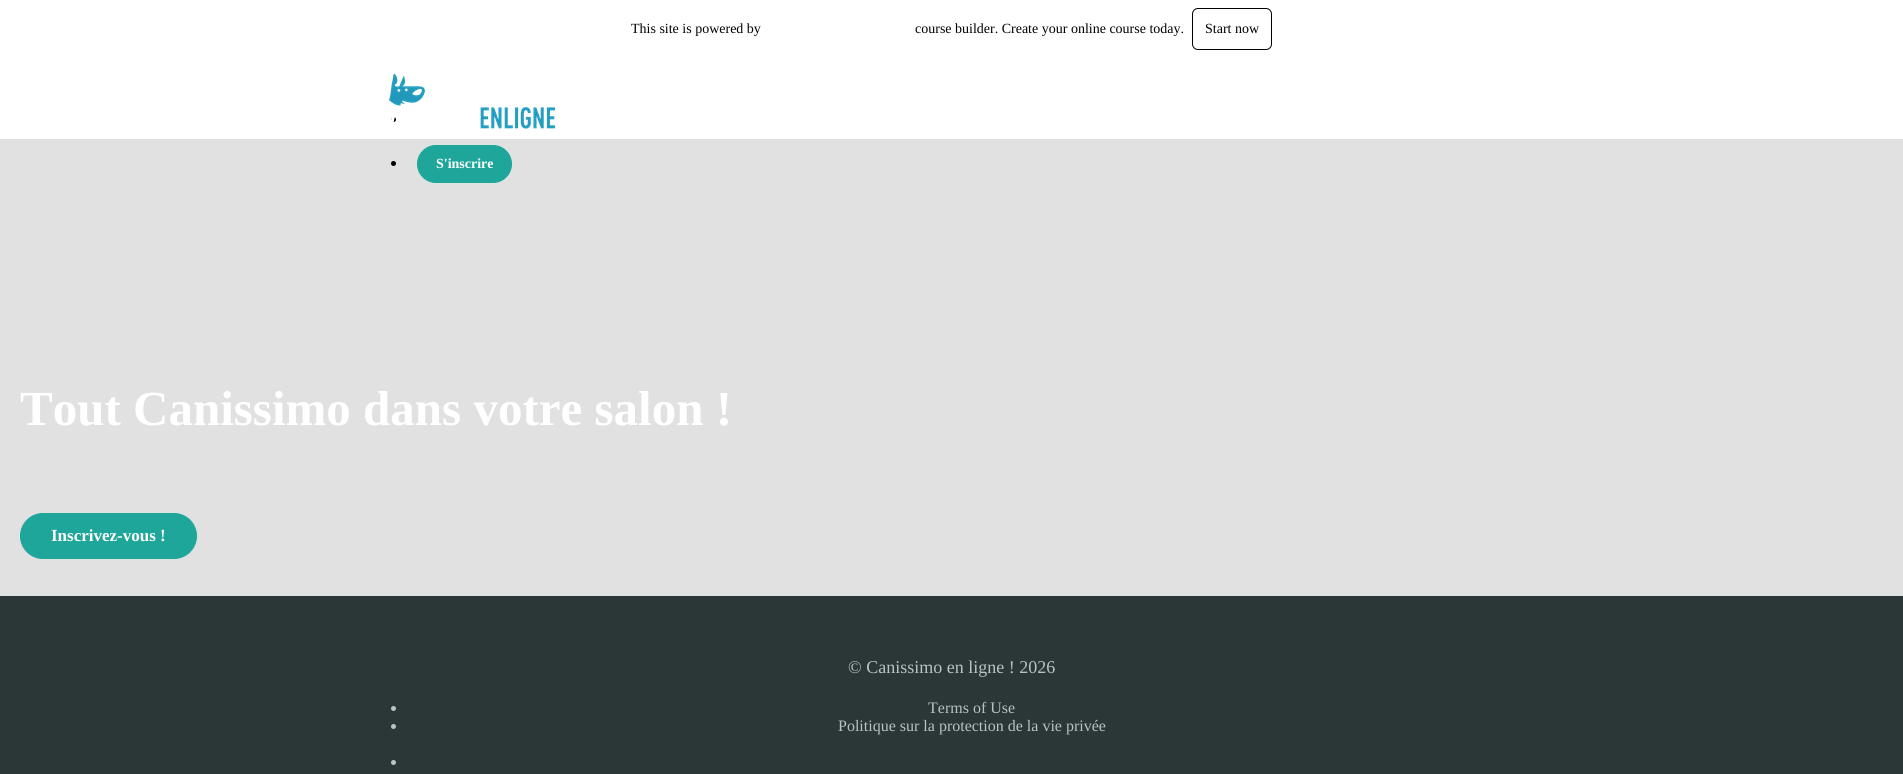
#include <cairo.h>
#include <math.h>
#include <stddef.h>


static void round_rect(cairo_t *cr, double x, double y, double w, double h, double r) {
    cairo_new_sub_path(cr);
    cairo_arc(cr, x + w - r, y + h - r, r, 0, M_PI / 2);
    cairo_arc(cr, x + r, y + h - r, r, M_PI / 2, M_PI);
    cairo_arc(cr, x + r, y + r, r, M_PI, 1.5 * M_PI);
    cairo_arc(cr, x + w - r, y + r, r, 1.5 * M_PI, 2 * M_PI);
    cairo_close_path(cr);
}

static void picture(cairo_t *cr, const char *path, double x, double y, double w, double h) {
    cairo_surface_t *image = cairo_image_surface_create_from_png(path);
    cairo_save(cr);
    cairo_set_source_surface(cr, image, x, y);
    cairo_rectangle(cr, x, y, w, h);
    cairo_fill(cr);
    cairo_restore(cr);
    cairo_surface_destroy(image);
}

int main(void) {
    cairo_surface_t *surface = cairo_image_surface_create(CAIRO_FORMAT_RGB24, 1903, 774);
    cairo_t *cr = cairo_create(surface);
    cairo_font_options_t *options = cairo_font_options_create();
    cairo_font_options_set_hint_metrics(options, CAIRO_HINT_METRICS_OFF);
    cairo_font_options_set_hint_style(options, CAIRO_HINT_STYLE_NONE);
    cairo_set_font_options(cr, options);
    cairo_set_miter_limit(cr, 4);
    cairo_set_source_rgb(cr, 1, 1, 1);
    cairo_paint(cr);
    cairo_select_font_face(cr, "Liberation Serif", CAIRO_FONT_SLANT_NORMAL, CAIRO_FONT_WEIGHT_NORMAL);
    cairo_set_font_size(cr, 14);
    cairo_set_source_rgb(cr, 0, 0, 0);
    cairo_move_to(cr, 631, 33);
    cairo_show_text(cr, "This site is powered by");
    cairo_move_to(cr, 915, 33);
    cairo_show_text(cr, "course builder. Create your online course today.");
    round_rect(cr, 1192.5, 8.5, 79, 41, 5.5);
    cairo_set_line_width(cr, 1);
    cairo_stroke(cr);
    cairo_move_to(cr, 1205, 33);
    cairo_show_text(cr, "Start now");
    cairo_new_path(cr);
    cairo_arc(cr, 393.5, 119.5, 2.5, 0, 2 * M_PI);
    cairo_fill(cr);
    picture(cr, "img1.png", 389, 74, 167, 55);
    cairo_set_source_rgb(cr, 0.882, 0.882, 0.882);
    cairo_rectangle(cr, 0, 139, 1903, 457);
    cairo_fill(cr);
    cairo_set_source_rgb(cr, 0, 0, 0);
    cairo_arc(cr, 393.5, 163.5, 2.5, 0, 2 * M_PI);
    cairo_fill(cr);
    cairo_set_source_rgb(cr, 0.118, 0.651, 0.604);
    round_rect(cr, 417.5, 145.5, 94, 37, 18.5);
    cairo_fill_preserve(cr);
    cairo_stroke(cr);
    cairo_select_font_face(cr, "Liberation Serif", CAIRO_FONT_SLANT_NORMAL, CAIRO_FONT_WEIGHT_BOLD);
    cairo_set_source_rgb(cr, 1, 1, 1);
    cairo_move_to(cr, 436, 168);
    cairo_show_text(cr, "S'inscrire");
    cairo_set_font_size(cr, 49);
    cairo_move_to(cr, 20, 425);
    cairo_show_text(cr, "Tout Canissimo dans votre salon !");
    cairo_set_source_rgb(cr, 0.118, 0.651, 0.604);
    round_rect(cr, 20.5, 513.5, 176, 45, 22.5);
    cairo_fill_preserve(cr);
    cairo_stroke(cr);
    cairo_set_font_size(cr, 17);
    cairo_set_source_rgb(cr, 1, 1, 1);
    cairo_move_to(cr, 51, 541);
    cairo_show_text(cr, "Inscrivez-vous !");
    cairo_set_source_rgb(cr, 0.169, 0.212, 0.212);
    cairo_rectangle(cr, 0, 596, 1903, 178);
    cairo_fill(cr);
    cairo_select_font_face(cr, "Liberation Serif", CAIRO_FONT_SLANT_NORMAL, CAIRO_FONT_WEIGHT_NORMAL);
    cairo_set_font_size(cr, 18);
    cairo_set_source_rgb(cr, 0.729, 0.757, 0.78);
    cairo_move_to(cr, 848, 673);
    cairo_show_text(cr, "© Canissimo en ligne ! 2026");
    cairo_new_path(cr);
    cairo_arc(cr, 393.5, 708.5, 2.5, 0, 2 * M_PI);
    cairo_fill(cr);
    cairo_set_font_size(cr, 16);
    cairo_move_to(cr, 928, 713);
    cairo_show_text(cr, "Terms of Use");
    cairo_new_path(cr);
    cairo_arc(cr, 393.5, 726.5, 2.5, 0, 2 * M_PI);
    cairo_fill(cr);
    cairo_move_to(cr, 838, 731);
    cairo_show_text(cr, "Politique sur la protection de la vie privée");
    cairo_new_path(cr);
    cairo_arc(cr, 393.5, 762.5, 2.5, 0, 2 * M_PI);
    cairo_fill(cr);
    cairo_surface_write_to_png(surface, "page.png");
    cairo_font_options_destroy(options);
    cairo_destroy(cr);
    cairo_surface_destroy(surface);
    return 0;
}
